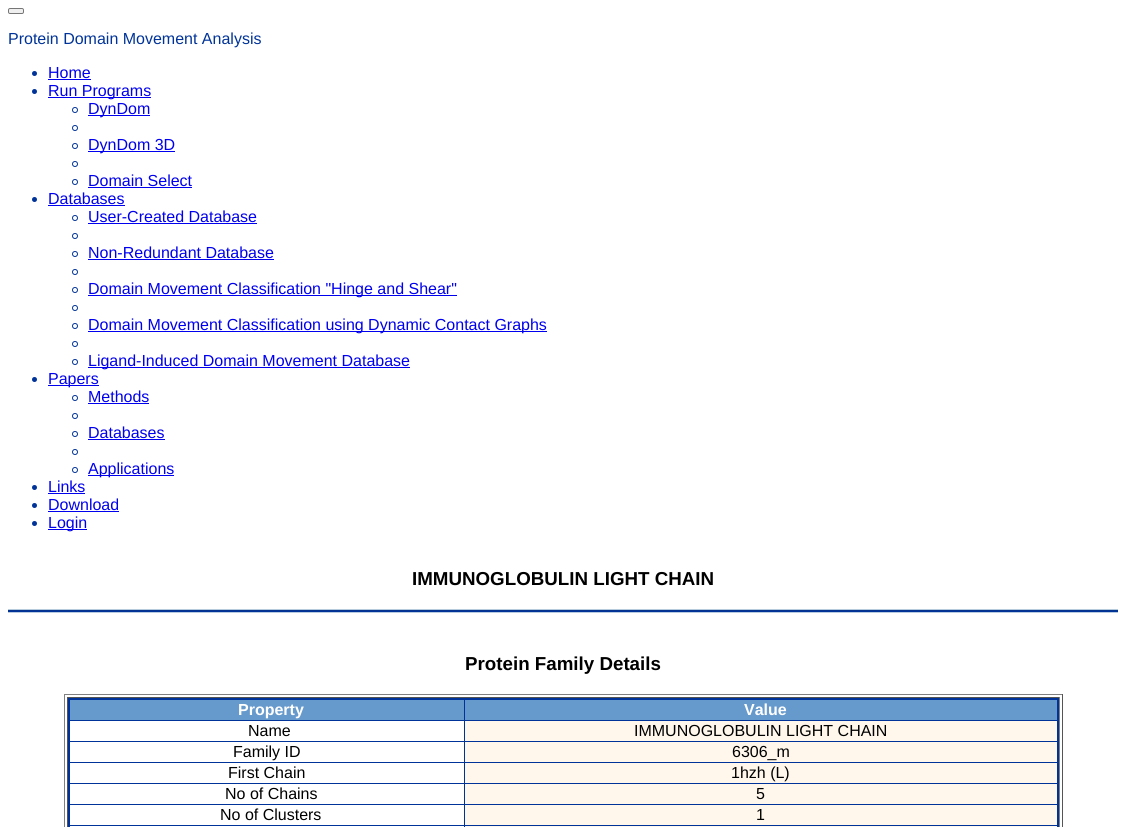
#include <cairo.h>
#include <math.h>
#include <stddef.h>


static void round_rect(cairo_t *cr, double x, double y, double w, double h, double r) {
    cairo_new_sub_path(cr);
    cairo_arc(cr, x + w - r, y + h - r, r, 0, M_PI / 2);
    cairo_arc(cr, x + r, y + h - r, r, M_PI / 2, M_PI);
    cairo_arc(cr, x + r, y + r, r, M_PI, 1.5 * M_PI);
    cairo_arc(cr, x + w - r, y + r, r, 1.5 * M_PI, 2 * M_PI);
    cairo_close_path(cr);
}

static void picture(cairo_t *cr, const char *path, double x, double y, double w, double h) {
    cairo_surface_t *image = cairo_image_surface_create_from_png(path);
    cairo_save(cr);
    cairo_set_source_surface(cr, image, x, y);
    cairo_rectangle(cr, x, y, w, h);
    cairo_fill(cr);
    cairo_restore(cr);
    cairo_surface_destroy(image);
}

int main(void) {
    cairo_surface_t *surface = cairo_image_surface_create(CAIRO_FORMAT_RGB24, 1126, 827);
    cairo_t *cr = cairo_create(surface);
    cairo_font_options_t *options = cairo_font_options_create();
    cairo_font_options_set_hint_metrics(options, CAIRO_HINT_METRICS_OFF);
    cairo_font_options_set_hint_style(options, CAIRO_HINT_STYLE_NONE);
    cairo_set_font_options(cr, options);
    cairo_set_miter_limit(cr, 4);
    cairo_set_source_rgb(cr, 1, 1, 1);
    cairo_paint(cr);
    cairo_set_source_rgb(cr, 0.937, 0.937, 0.937);
    round_rect(cr, 8.5, 8.5, 15, 5, 1.5);
    cairo_fill_preserve(cr);
    cairo_set_source_rgb(cr, 0.463, 0.463, 0.463);
    cairo_set_line_width(cr, 1);
    cairo_stroke(cr);
    cairo_select_font_face(cr, "Liberation Sans", CAIRO_FONT_SLANT_NORMAL, CAIRO_FONT_WEIGHT_NORMAL);
    cairo_set_font_size(cr, 16);
    cairo_set_source_rgb(cr, 0, 0.2, 0.6);
    cairo_move_to(cr, 8, 44);
    cairo_show_text(cr, "Protein Domain Movement Analysis");
    cairo_new_path(cr);
    cairo_arc(cr, 34.5, 73.5, 2.5, 0, 2 * M_PI);
    cairo_fill(cr);
    cairo_set_source_rgb(cr, 0, 0, 0.933);
    cairo_move_to(cr, 48, 78);
    cairo_show_text(cr, "Home");
    cairo_rectangle(cr, 48, 79, 43, 1);
    cairo_fill(cr);
    cairo_set_source_rgb(cr, 0, 0.2, 0.6);
    cairo_arc(cr, 34.5, 91.5, 2.5, 0, 2 * M_PI);
    cairo_fill(cr);
    cairo_set_source_rgb(cr, 0, 0, 0.933);
    cairo_rectangle(cr, 48, 97, 103, 1);
    cairo_fill(cr);
    cairo_move_to(cr, 48, 96);
    cairo_show_text(cr, "Run Programs");
    cairo_new_path(cr);
    cairo_arc(cr, 75, 110, 2.5, 0, 2 * M_PI);
    cairo_set_source_rgb(cr, 0, 0.2, 0.6);
    cairo_stroke(cr);
    cairo_set_source_rgb(cr, 0, 0, 0.933);
    cairo_rectangle(cr, 88, 115, 62, 1);
    cairo_fill(cr);
    cairo_move_to(cr, 88, 114);
    cairo_show_text(cr, "DynDom");
    cairo_new_path(cr);
    cairo_arc(cr, 75, 128, 2.5, 0, 2 * M_PI);
    cairo_set_source_rgb(cr, 0, 0.2, 0.6);
    cairo_stroke(cr);
    cairo_arc(cr, 75, 146, 2.5, 0, 2 * M_PI);
    cairo_stroke(cr);
    cairo_set_source_rgb(cr, 0, 0, 0.933);
    cairo_rectangle(cr, 88, 151, 87, 1);
    cairo_fill(cr);
    cairo_move_to(cr, 88, 150);
    cairo_show_text(cr, "DynDom 3D");
    cairo_new_path(cr);
    cairo_arc(cr, 75, 164, 2.5, 0, 2 * M_PI);
    cairo_set_source_rgb(cr, 0, 0.2, 0.6);
    cairo_stroke(cr);
    cairo_arc(cr, 75, 182, 2.5, 0, 2 * M_PI);
    cairo_stroke(cr);
    cairo_set_source_rgb(cr, 0, 0, 0.933);
    cairo_move_to(cr, 88, 186);
    cairo_show_text(cr, "Domain Select");
    cairo_rectangle(cr, 88, 187, 104, 1);
    cairo_fill(cr);
    cairo_set_source_rgb(cr, 0, 0.2, 0.6);
    cairo_arc(cr, 34.5, 199.5, 2.5, 0, 2 * M_PI);
    cairo_fill(cr);
    cairo_set_source_rgb(cr, 0, 0, 0.933);
    cairo_move_to(cr, 48, 204);
    cairo_show_text(cr, "Databases");
    cairo_rectangle(cr, 48, 205, 77, 1);
    cairo_fill(cr);
    cairo_arc(cr, 75, 218, 2.5, 0, 2 * M_PI);
    cairo_set_source_rgb(cr, 0, 0.2, 0.6);
    cairo_stroke(cr);
    cairo_set_source_rgb(cr, 0, 0, 0.933);
    cairo_move_to(cr, 88, 222);
    cairo_show_text(cr, "User-Created Database");
    cairo_rectangle(cr, 88, 223, 169, 1);
    cairo_fill(cr);
    cairo_arc(cr, 75, 236, 2.5, 0, 2 * M_PI);
    cairo_set_source_rgb(cr, 0, 0.2, 0.6);
    cairo_stroke(cr);
    cairo_arc(cr, 75, 254, 2.5, 0, 2 * M_PI);
    cairo_stroke(cr);
    cairo_set_source_rgb(cr, 0, 0, 0.933);
    cairo_move_to(cr, 88, 258);
    cairo_show_text(cr, "Non-Redundant Database");
    cairo_rectangle(cr, 88, 259, 186, 1);
    cairo_fill(cr);
    cairo_arc(cr, 75, 272, 2.5, 0, 2 * M_PI);
    cairo_set_source_rgb(cr, 0, 0.2, 0.6);
    cairo_stroke(cr);
    cairo_arc(cr, 75, 290, 2.5, 0, 2 * M_PI);
    cairo_stroke(cr);
    cairo_set_source_rgb(cr, 0, 0, 0.933);
    cairo_rectangle(cr, 88, 295, 369, 1);
    cairo_fill(cr);
    cairo_move_to(cr, 88, 294);
    cairo_show_text(cr, "Domain Movement Classification \"Hinge and Shear\"");
    cairo_new_path(cr);
    cairo_arc(cr, 75, 308, 2.5, 0, 2 * M_PI);
    cairo_set_source_rgb(cr, 0, 0.2, 0.6);
    cairo_stroke(cr);
    cairo_arc(cr, 75, 326, 2.5, 0, 2 * M_PI);
    cairo_stroke(cr);
    cairo_set_source_rgb(cr, 0, 0, 0.933);
    cairo_rectangle(cr, 88, 331, 459, 1);
    cairo_fill(cr);
    cairo_move_to(cr, 88, 330);
    cairo_show_text(cr, "Domain Movement Classification using Dynamic Contact Graphs");
    cairo_new_path(cr);
    cairo_arc(cr, 75, 344, 2.5, 0, 2 * M_PI);
    cairo_set_source_rgb(cr, 0, 0.2, 0.6);
    cairo_stroke(cr);
    cairo_arc(cr, 75, 362, 2.5, 0, 2 * M_PI);
    cairo_stroke(cr);
    cairo_set_source_rgb(cr, 0, 0, 0.933);
    cairo_rectangle(cr, 88, 367, 322, 1);
    cairo_fill(cr);
    cairo_move_to(cr, 88, 366);
    cairo_show_text(cr, "Ligand-Induced Domain Movement Database");
    cairo_set_source_rgb(cr, 0, 0.2, 0.6);
    cairo_new_path(cr);
    cairo_arc(cr, 34.5, 379.5, 2.5, 0, 2 * M_PI);
    cairo_fill(cr);
    cairo_set_source_rgb(cr, 0, 0, 0.933);
    cairo_rectangle(cr, 48, 385, 51, 1);
    cairo_fill(cr);
    cairo_move_to(cr, 48, 384);
    cairo_show_text(cr, "Papers");
    cairo_new_path(cr);
    cairo_arc(cr, 75, 398, 2.5, 0, 2 * M_PI);
    cairo_set_source_rgb(cr, 0, 0.2, 0.6);
    cairo_stroke(cr);
    cairo_set_source_rgb(cr, 0, 0, 0.933);
    cairo_move_to(cr, 88, 402);
    cairo_show_text(cr, "Methods");
    cairo_rectangle(cr, 88, 403, 61, 1);
    cairo_fill(cr);
    cairo_arc(cr, 75, 416, 2.5, 0, 2 * M_PI);
    cairo_set_source_rgb(cr, 0, 0.2, 0.6);
    cairo_stroke(cr);
    cairo_arc(cr, 75, 434, 2.5, 0, 2 * M_PI);
    cairo_stroke(cr);
    cairo_set_source_rgb(cr, 0, 0, 0.933);
    cairo_move_to(cr, 88, 438);
    cairo_show_text(cr, "Databases");
    cairo_rectangle(cr, 88, 439, 77, 1);
    cairo_fill(cr);
    cairo_arc(cr, 75, 452, 2.5, 0, 2 * M_PI);
    cairo_set_source_rgb(cr, 0, 0.2, 0.6);
    cairo_stroke(cr);
    cairo_arc(cr, 75, 470, 2.5, 0, 2 * M_PI);
    cairo_stroke(cr);
    cairo_set_source_rgb(cr, 0, 0, 0.933);
    cairo_rectangle(cr, 88, 475, 86, 1);
    cairo_fill(cr);
    cairo_move_to(cr, 88, 474);
    cairo_show_text(cr, "Applications");
    cairo_set_source_rgb(cr, 0, 0.2, 0.6);
    cairo_new_path(cr);
    cairo_arc(cr, 34.5, 487.5, 2.5, 0, 2 * M_PI);
    cairo_fill(cr);
    cairo_set_source_rgb(cr, 0, 0, 0.933);
    cairo_move_to(cr, 48, 492);
    cairo_show_text(cr, "Links");
    cairo_rectangle(cr, 48, 493, 37, 1);
    cairo_fill(cr);
    cairo_set_source_rgb(cr, 0, 0.2, 0.6);
    cairo_arc(cr, 34.5, 505.5, 2.5, 0, 2 * M_PI);
    cairo_fill(cr);
    cairo_set_source_rgb(cr, 0, 0, 0.933);
    cairo_move_to(cr, 48, 510);
    cairo_show_text(cr, "Download");
    cairo_rectangle(cr, 48, 511, 71, 1);
    cairo_fill(cr);
    cairo_set_source_rgb(cr, 0, 0.2, 0.6);
    cairo_arc(cr, 34.5, 523.5, 2.5, 0, 2 * M_PI);
    cairo_fill(cr);
    cairo_set_source_rgb(cr, 0, 0, 0.933);
    cairo_rectangle(cr, 48, 529, 39, 1);
    cairo_fill(cr);
    cairo_move_to(cr, 48, 528);
    cairo_show_text(cr, "Login");
    cairo_select_font_face(cr, "Liberation Sans", CAIRO_FONT_SLANT_NORMAL, CAIRO_FONT_WEIGHT_BOLD);
    cairo_set_font_size(cr, 18.75);
    cairo_set_source_rgb(cr, 0, 0, 0);
    cairo_move_to(cr, 412, 585);
    cairo_show_text(cr, "IMMUNOGLOBULIN LIGHT CHAIN");
    picture(cr, "img1.png", 8, 609, 1110, 4);
    cairo_move_to(cr, 465, 670);
    cairo_show_text(cr, "Protein Family Details");
    cairo_set_source_rgb(cr, 0.502, 0.502, 0.502);
    cairo_rectangle(cr, 64, 694, 999, 1);
    cairo_fill(cr);
    cairo_set_source_rgb(cr, 0.333, 0.333, 0.333);
    cairo_rectangle(cr, 1062, 694, 1, 133);
    cairo_fill(cr);
    cairo_set_source_rgb(cr, 0.502, 0.502, 0.502);
    cairo_rectangle(cr, 64, 694, 1, 133);
    cairo_fill(cr);
    cairo_set_source_rgb(cr, 0, 0.2, 0.6);
    cairo_rectangle(cr, 68, 698, 991, 129);
    cairo_fill(cr);
    cairo_set_source_rgb(cr, 0.333, 0.333, 0.333);
    cairo_rectangle(cr, 67, 697, 993, 1);
    cairo_fill(cr);
    cairo_set_source_rgb(cr, 0.502, 0.502, 0.502);
    cairo_rectangle(cr, 1059, 697, 1, 130);
    cairo_fill(cr);
    cairo_set_source_rgb(cr, 0.333, 0.333, 0.333);
    cairo_rectangle(cr, 67, 697, 1, 130);
    cairo_fill(cr);
    cairo_set_source_rgb(cr, 0.4, 0.6, 0.8);
    cairo_rectangle(cr, 70, 700, 394, 20);
    cairo_fill(cr);
    cairo_set_font_size(cr, 16);
    cairo_set_source_rgb(cr, 1, 1, 1);
    cairo_move_to(cr, 238, 715);
    cairo_show_text(cr, "Property");
    cairo_set_source_rgb(cr, 0.4, 0.6, 0.8);
    cairo_rectangle(cr, 465, 700, 592, 20);
    cairo_fill(cr);
    cairo_set_source_rgb(cr, 1, 1, 1);
    cairo_move_to(cr, 744, 715);
    cairo_show_text(cr, "Value");
    cairo_rectangle(cr, 70, 721, 394, 20);
    cairo_fill(cr);
    cairo_select_font_face(cr, "Liberation Sans", CAIRO_FONT_SLANT_NORMAL, CAIRO_FONT_WEIGHT_NORMAL);
    cairo_set_source_rgb(cr, 0, 0, 0);
    cairo_move_to(cr, 248, 736);
    cairo_show_text(cr, "Name");
    cairo_set_source_rgb(cr, 1, 0.965, 0.925);
    cairo_rectangle(cr, 465, 721, 592, 20);
    cairo_fill(cr);
    cairo_set_source_rgb(cr, 0, 0, 0);
    cairo_move_to(cr, 634, 736);
    cairo_show_text(cr, "IMMUNOGLOBULIN LIGHT CHAIN");
    cairo_set_source_rgb(cr, 1, 1, 1);
    cairo_rectangle(cr, 70, 742, 394, 20);
    cairo_fill(cr);
    cairo_set_source_rgb(cr, 0, 0, 0);
    cairo_move_to(cr, 233, 757);
    cairo_show_text(cr, "Family ID");
    cairo_set_source_rgb(cr, 1, 0.965, 0.925);
    cairo_rectangle(cr, 465, 742, 592, 20);
    cairo_fill(cr);
    cairo_set_source_rgb(cr, 0, 0, 0);
    cairo_move_to(cr, 732, 757);
    cairo_show_text(cr, "6306_m");
    cairo_set_source_rgb(cr, 1, 1, 1);
    cairo_rectangle(cr, 70, 763, 394, 20);
    cairo_fill(cr);
    cairo_set_source_rgb(cr, 0, 0, 0);
    cairo_move_to(cr, 228, 778);
    cairo_show_text(cr, "First Chain");
    cairo_set_source_rgb(cr, 1, 0.965, 0.925);
    cairo_rectangle(cr, 465, 763, 592, 20);
    cairo_fill(cr);
    cairo_set_source_rgb(cr, 0, 0, 0);
    cairo_move_to(cr, 731, 778);
    cairo_show_text(cr, "1hzh (L)");
    cairo_set_source_rgb(cr, 1, 1, 1);
    cairo_rectangle(cr, 70, 784, 394, 20);
    cairo_fill(cr);
    cairo_set_source_rgb(cr, 0, 0, 0);
    cairo_move_to(cr, 225, 799);
    cairo_show_text(cr, "No of Chains");
    cairo_set_source_rgb(cr, 1, 0.965, 0.925);
    cairo_rectangle(cr, 465, 784, 592, 20);
    cairo_fill(cr);
    cairo_set_source_rgb(cr, 0, 0, 0);
    cairo_move_to(cr, 756, 799);
    cairo_show_text(cr, "5");
    cairo_set_source_rgb(cr, 1, 1, 1);
    cairo_rectangle(cr, 70, 805, 394, 20);
    cairo_fill(cr);
    cairo_set_source_rgb(cr, 0, 0, 0);
    cairo_move_to(cr, 220, 820);
    cairo_show_text(cr, "No of Clusters");
    cairo_set_source_rgb(cr, 1, 0.965, 0.925);
    cairo_rectangle(cr, 465, 805, 592, 20);
    cairo_fill(cr);
    cairo_set_source_rgb(cr, 0, 0, 0);
    cairo_move_to(cr, 756, 820);
    cairo_show_text(cr, "1");
    cairo_set_source_rgb(cr, 1, 1, 1);
    cairo_rectangle(cr, 70, 826, 394, 1);
    cairo_fill(cr);
    cairo_set_source_rgb(cr, 1, 0.965, 0.925);
    cairo_rectangle(cr, 465, 826, 592, 1);
    cairo_fill(cr);
    cairo_surface_write_to_png(surface, "page.png");
    cairo_font_options_destroy(options);
    cairo_destroy(cr);
    cairo_surface_destroy(surface);
    return 0;
}
